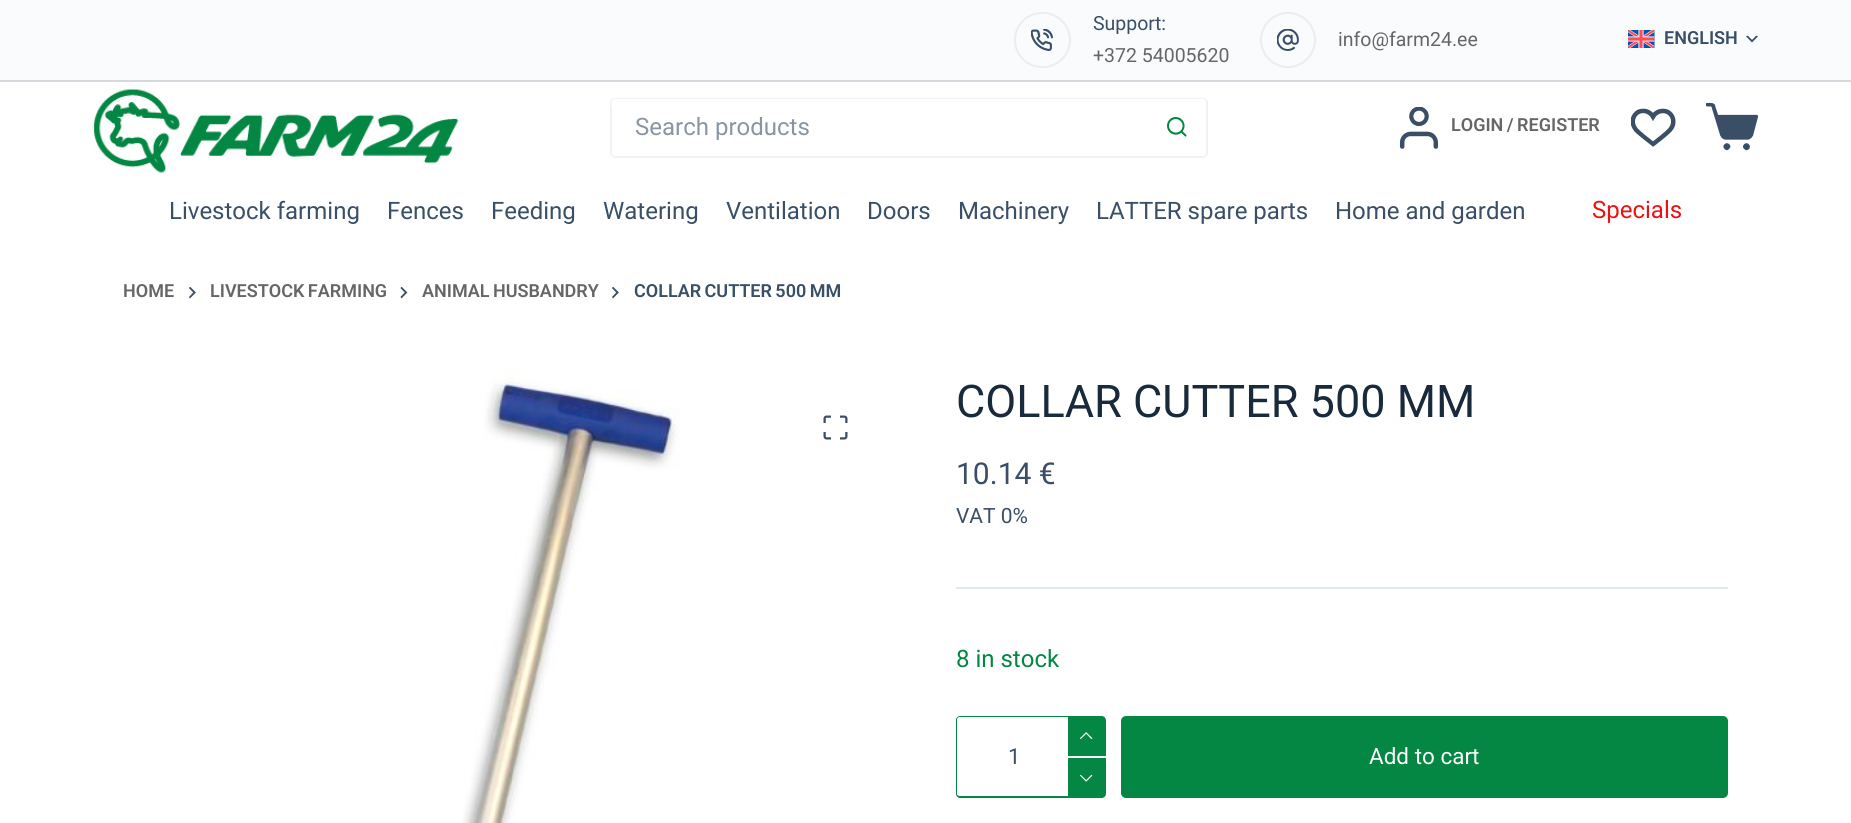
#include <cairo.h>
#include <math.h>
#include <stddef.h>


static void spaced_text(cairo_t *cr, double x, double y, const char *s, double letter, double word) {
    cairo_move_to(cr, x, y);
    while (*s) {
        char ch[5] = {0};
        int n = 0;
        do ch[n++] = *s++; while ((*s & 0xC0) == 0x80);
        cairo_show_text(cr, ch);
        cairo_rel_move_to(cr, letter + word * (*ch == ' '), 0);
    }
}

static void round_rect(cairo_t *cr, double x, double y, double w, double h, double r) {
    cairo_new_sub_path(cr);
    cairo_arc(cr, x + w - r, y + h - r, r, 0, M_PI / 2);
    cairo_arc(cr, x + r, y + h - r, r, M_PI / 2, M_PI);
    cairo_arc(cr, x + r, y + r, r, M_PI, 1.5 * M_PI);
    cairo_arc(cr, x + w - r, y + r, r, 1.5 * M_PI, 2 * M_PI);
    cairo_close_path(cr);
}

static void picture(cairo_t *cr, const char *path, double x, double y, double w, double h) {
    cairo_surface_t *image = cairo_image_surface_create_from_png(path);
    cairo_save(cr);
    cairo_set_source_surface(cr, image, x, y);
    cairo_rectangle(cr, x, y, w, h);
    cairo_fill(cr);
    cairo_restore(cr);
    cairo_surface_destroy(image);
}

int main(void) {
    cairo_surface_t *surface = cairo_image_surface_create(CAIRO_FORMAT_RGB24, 1851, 823);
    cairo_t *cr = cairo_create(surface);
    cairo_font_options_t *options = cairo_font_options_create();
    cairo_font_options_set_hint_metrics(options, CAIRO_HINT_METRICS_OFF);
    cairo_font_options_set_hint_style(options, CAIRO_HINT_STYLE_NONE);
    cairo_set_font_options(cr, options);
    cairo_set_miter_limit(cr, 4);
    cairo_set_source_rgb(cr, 1, 1, 1);
    cairo_paint(cr);
    cairo_set_source_rgb(cr, 0.98, 0.984, 0.988);
    cairo_rectangle(cr, 0, 0, 1851, 80);
    cairo_fill(cr);
    round_rect(cr, 1015, 13, 55, 54, 27);
    cairo_set_source_rgb(cr, 0.918, 0.929, 0.941);
    cairo_stroke(cr);
    picture(cr, "img1.png", 1031, 29, 22, 22);
    cairo_select_font_face(cr, "Roboto", CAIRO_FONT_SLANT_NORMAL, CAIRO_FONT_WEIGHT_NORMAL);
    cairo_set_font_size(cr, 19.5);
    cairo_set_source_rgb(cr, 0.227, 0.31, 0.4);
    cairo_move_to(cr, 1093, 30);
    cairo_show_text(cr, "Support:");
    cairo_set_source_rgb(cr, 0.4, 0.4, 0.4);
    cairo_move_to(cr, 1093, 62);
    cairo_show_text(cr, "+372 54005620");
    cairo_new_path(cr);
    cairo_arc(cr, 1288, 40, 27, 0, 2 * M_PI);
    cairo_set_source_rgb(cr, 0.918, 0.929, 0.941);
    cairo_stroke(cr);
    picture(cr, "img2.png", 1277, 29, 22, 22);
    cairo_set_source_rgb(cr, 0.4, 0.4, 0.4);
    cairo_move_to(cr, 1338, 46);
    cairo_show_text(cr, "info@farm24.ee");
    picture(cr, "img3.png", 1628, 30, 27, 18);
    cairo_select_font_face(cr, "Roboto SemiBold", CAIRO_FONT_SLANT_NORMAL, CAIRO_FONT_WEIGHT_NORMAL);
    cairo_set_font_size(cr, 18);
    cairo_set_source_rgb(cr, 0.227, 0.31, 0.4);
    cairo_move_to(cr, 1664, 44);
    cairo_show_text(cr, "ENGLISH");
    picture(cr, "img4.png", 1746, 35, 12, 8);
    cairo_set_source_rgb(cr, 0.835, 0.847, 0.863);
    cairo_rectangle(cr, 0, 80, 1851, 2);
    cairo_fill(cr);
    picture(cr, "img5.png", 94, 89, 365, 84);
    cairo_set_source_rgb(cr, 0.949, 0.949, 0.949);
    cairo_set_fill_rule(cr, CAIRO_FILL_RULE_EVEN_ODD);
    cairo_new_path(cr);
    cairo_move_to(cr, 615, 98);
    cairo_line_to(cr, 1148, 98);
    cairo_line_to(cr, 1148, 158);
    cairo_line_to(cr, 615, 158);
    cairo_curve_to(cr, 613, 158, 610, 155, 610, 153);
    cairo_line_to(cr, 610, 102);
    cairo_curve_to(cr, 610, 100, 613, 98, 615, 98);
    cairo_close_path(cr);
    cairo_move_to(cr, 615, 99);
    cairo_line_to(cr, 1148, 99);
    cairo_line_to(cr, 1148, 156);
    cairo_line_to(cr, 614, 156);
    cairo_line_to(cr, 612, 154);
    cairo_line_to(cr, 612, 110);
    cairo_curve_to(cr, 612, 110, 610, 101, 613, 100);
    cairo_close_path(cr);
    cairo_fill(cr);
    cairo_select_font_face(cr, "Roboto", CAIRO_FONT_SLANT_NORMAL, CAIRO_FONT_WEIGHT_NORMAL);
    cairo_set_font_size(cr, 24);
    cairo_set_source_rgb(cr, 0.537, 0.584, 0.639);
    cairo_move_to(cr, 635, 135);
    cairo_show_text(cr, "Search products");
    cairo_set_source_rgb(cr, 0.949, 0.949, 0.949);
    cairo_new_path(cr);
    cairo_move_to(cr, 1148, 98);
    cairo_line_to(cr, 1203, 98);
    cairo_curve_to(cr, 1205, 98, 1208, 100, 1208, 102);
    cairo_line_to(cr, 1208, 153);
    cairo_curve_to(cr, 1208, 155, 1205, 158, 1203, 158);
    cairo_line_to(cr, 1148, 158);
    cairo_close_path(cr);
    cairo_move_to(cr, 1148, 99);
    cairo_line_to(cr, 1203, 99);
    cairo_curve_to(cr, 1205, 99, 1206, 100, 1206, 102);
    cairo_line_to(cr, 1206, 153);
    cairo_curve_to(cr, 1206, 155, 1205, 156, 1203, 156);
    cairo_line_to(cr, 1148, 156);
    cairo_close_path(cr);
    cairo_fill(cr);
    picture(cr, "img6.png", 1167, 117, 20, 20);
    picture(cr, "img7.png", 1399, 107, 40, 42);
    cairo_select_font_face(cr, "Roboto SemiBold", CAIRO_FONT_SLANT_NORMAL, CAIRO_FONT_WEIGHT_NORMAL);
    cairo_set_font_size(cr, 18);
    cairo_set_source_rgb(cr, 0.4, 0.4, 0.4);
    spaced_text(cr, 1451, 131, "LOGIN / REGISTER", 0, -1);
    picture(cr, "img8.png", 1631, 108, 45, 39);
    picture(cr, "img9.png", 1706, 102, 52, 49);
    cairo_select_font_face(cr, "Roboto", CAIRO_FONT_SLANT_NORMAL, CAIRO_FONT_WEIGHT_NORMAL);
    cairo_set_font_size(cr, 24);
    cairo_set_source_rgb(cr, 0.227, 0.31, 0.4);
    cairo_move_to(cr, 169, 219);
    cairo_show_text(cr, "Livestock farming");
    cairo_move_to(cr, 387, 219);
    cairo_show_text(cr, "Fences");
    cairo_move_to(cr, 491, 219);
    cairo_show_text(cr, "Feeding");
    cairo_move_to(cr, 603, 219);
    cairo_show_text(cr, "Watering");
    cairo_move_to(cr, 726, 219);
    cairo_show_text(cr, "Ventilation");
    cairo_move_to(cr, 867, 219);
    cairo_show_text(cr, "Doors");
    cairo_move_to(cr, 958, 219);
    cairo_show_text(cr, "Machinery");
    cairo_move_to(cr, 1096, 219);
    cairo_show_text(cr, "LATTER spare parts");
    cairo_move_to(cr, 1335, 219);
    cairo_show_text(cr, "Home and garden");
    cairo_set_source_rgb(cr, 0.933, 0.067, 0.067);
    cairo_move_to(cr, 1592, 218);
    cairo_show_text(cr, "Specials");
    cairo_select_font_face(cr, "Roboto SemiBold", CAIRO_FONT_SLANT_NORMAL, CAIRO_FONT_WEIGHT_NORMAL);
    cairo_set_font_size(cr, 18);
    cairo_set_source_rgb(cr, 0.4, 0.4, 0.4);
    cairo_move_to(cr, 123, 297);
    cairo_show_text(cr, "HOME");
    picture(cr, "img10.png", 189, 287, 7, 12);
    spaced_text(cr, 210, 297, "LIVESTOCK FARMING", 0, -1);
    picture(cr, "img11.png", 400, 287, 8, 12);
    spaced_text(cr, 422, 297, "ANIMAL HUSBANDRY", 0, -1);
    picture(cr, "img10.png", 612, 287, 7, 12);
    cairo_set_source_rgb(cr, 0.227, 0.31, 0.4);
    spaced_text(cr, 634, 297, "COLLAR CUTTER 500 MM", 0, -1);
    picture(cr, "img12.png", 462, 368, 218, 455);
    picture(cr, "img13.png", 823, 415, 25, 25);
    cairo_select_font_face(cr, "Roboto", CAIRO_FONT_SLANT_NORMAL, CAIRO_FONT_WEIGHT_NORMAL);
    cairo_set_font_size(cr, 45);
    cairo_set_source_rgb(cr, 0.098, 0.165, 0.239);
    cairo_move_to(cr, 956, 417);
    cairo_show_text(cr, "COLLAR CUTTER 500 MM");
    cairo_set_font_size(cr, 30);
    cairo_set_source_rgb(cr, 0.227, 0.31, 0.4);
    cairo_move_to(cr, 956, 484);
    cairo_show_text(cr, "10.14 €");
    cairo_set_font_size(cr, 21);
    cairo_move_to(cr, 956, 523);
    cairo_show_text(cr, "VAT 0%");
    cairo_set_source_rgb(cr, 0.882, 0.91, 0.929);
    cairo_rectangle(cr, 956, 587, 772, 2);
    cairo_fill(cr);
    cairo_set_font_size(cr, 24);
    cairo_set_source_rgb(cr, 0.016, 0.529, 0.263);
    cairo_move_to(cr, 956, 667);
    cairo_show_text(cr, "8 in stock");
    cairo_new_path(cr);
    cairo_move_to(cr, 960, 716);
    cairo_line_to(cr, 1101, 716);
    cairo_curve_to(cr, 1103, 716, 1106, 718, 1106, 720);
    cairo_line_to(cr, 1106, 794);
    cairo_curve_to(cr, 1106, 796, 1103, 798, 1101, 798);
    cairo_line_to(cr, 960, 798);
    cairo_curve_to(cr, 958, 798, 956, 796, 956, 794);
    cairo_line_to(cr, 956, 720);
    cairo_curve_to(cr, 956, 718, 958, 716, 960, 716);
    cairo_close_path(cr);
    cairo_move_to(cr, 960, 717);
    cairo_line_to(cr, 1101, 717);
    cairo_curve_to(cr, 1103, 717, 1106, 718, 1106, 720);
    cairo_line_to(cr, 1106, 794);
    cairo_curve_to(cr, 1106, 795, 1103, 796, 1101, 796);
    cairo_line_to(cr, 960, 796);
    cairo_curve_to(cr, 958, 796, 957, 795, 957, 794);
    cairo_line_to(cr, 957, 720);
    cairo_curve_to(cr, 957, 718, 958, 717, 960, 717);
    cairo_close_path(cr);
    cairo_fill(cr);
    cairo_set_font_size(cr, 22);
    cairo_set_source_rgb(cr, 0.227, 0.31, 0.4);
    cairo_move_to(cr, 1008, 764);
    cairo_show_text(cr, "1");
    cairo_set_source_rgb(cr, 0.016, 0.529, 0.263);
    cairo_new_path(cr);
    cairo_move_to(cr, 1068, 716);
    cairo_line_to(cr, 1101, 716);
    cairo_curve_to(cr, 1104, 716, 1106, 718, 1106, 721);
    cairo_line_to(cr, 1106, 756);
    cairo_line_to(cr, 1068, 756);
    cairo_close_path(cr);
    cairo_fill(cr);
    picture(cr, "img14.png", 1080, 732, 13, 7);
    cairo_new_path(cr);
    cairo_move_to(cr, 1068, 758);
    cairo_line_to(cr, 1106, 758);
    cairo_line_to(cr, 1106, 793);
    cairo_curve_to(cr, 1106, 796, 1104, 798, 1101, 798);
    cairo_line_to(cr, 1068, 798);
    cairo_close_path(cr);
    cairo_fill(cr);
    picture(cr, "img15.png", 1080, 774, 13, 8);
    round_rect(cr, 1121, 716, 607, 82, 5);
    cairo_fill(cr);
    cairo_set_font_size(cr, 22.5);
    cairo_set_source_rgb(cr, 1, 1, 1);
    cairo_move_to(cr, 1369, 764);
    cairo_show_text(cr, "Add to cart");
    cairo_surface_write_to_png(surface, "page.png");
    cairo_font_options_destroy(options);
    cairo_destroy(cr);
    cairo_surface_destroy(surface);
    return 0;
}
